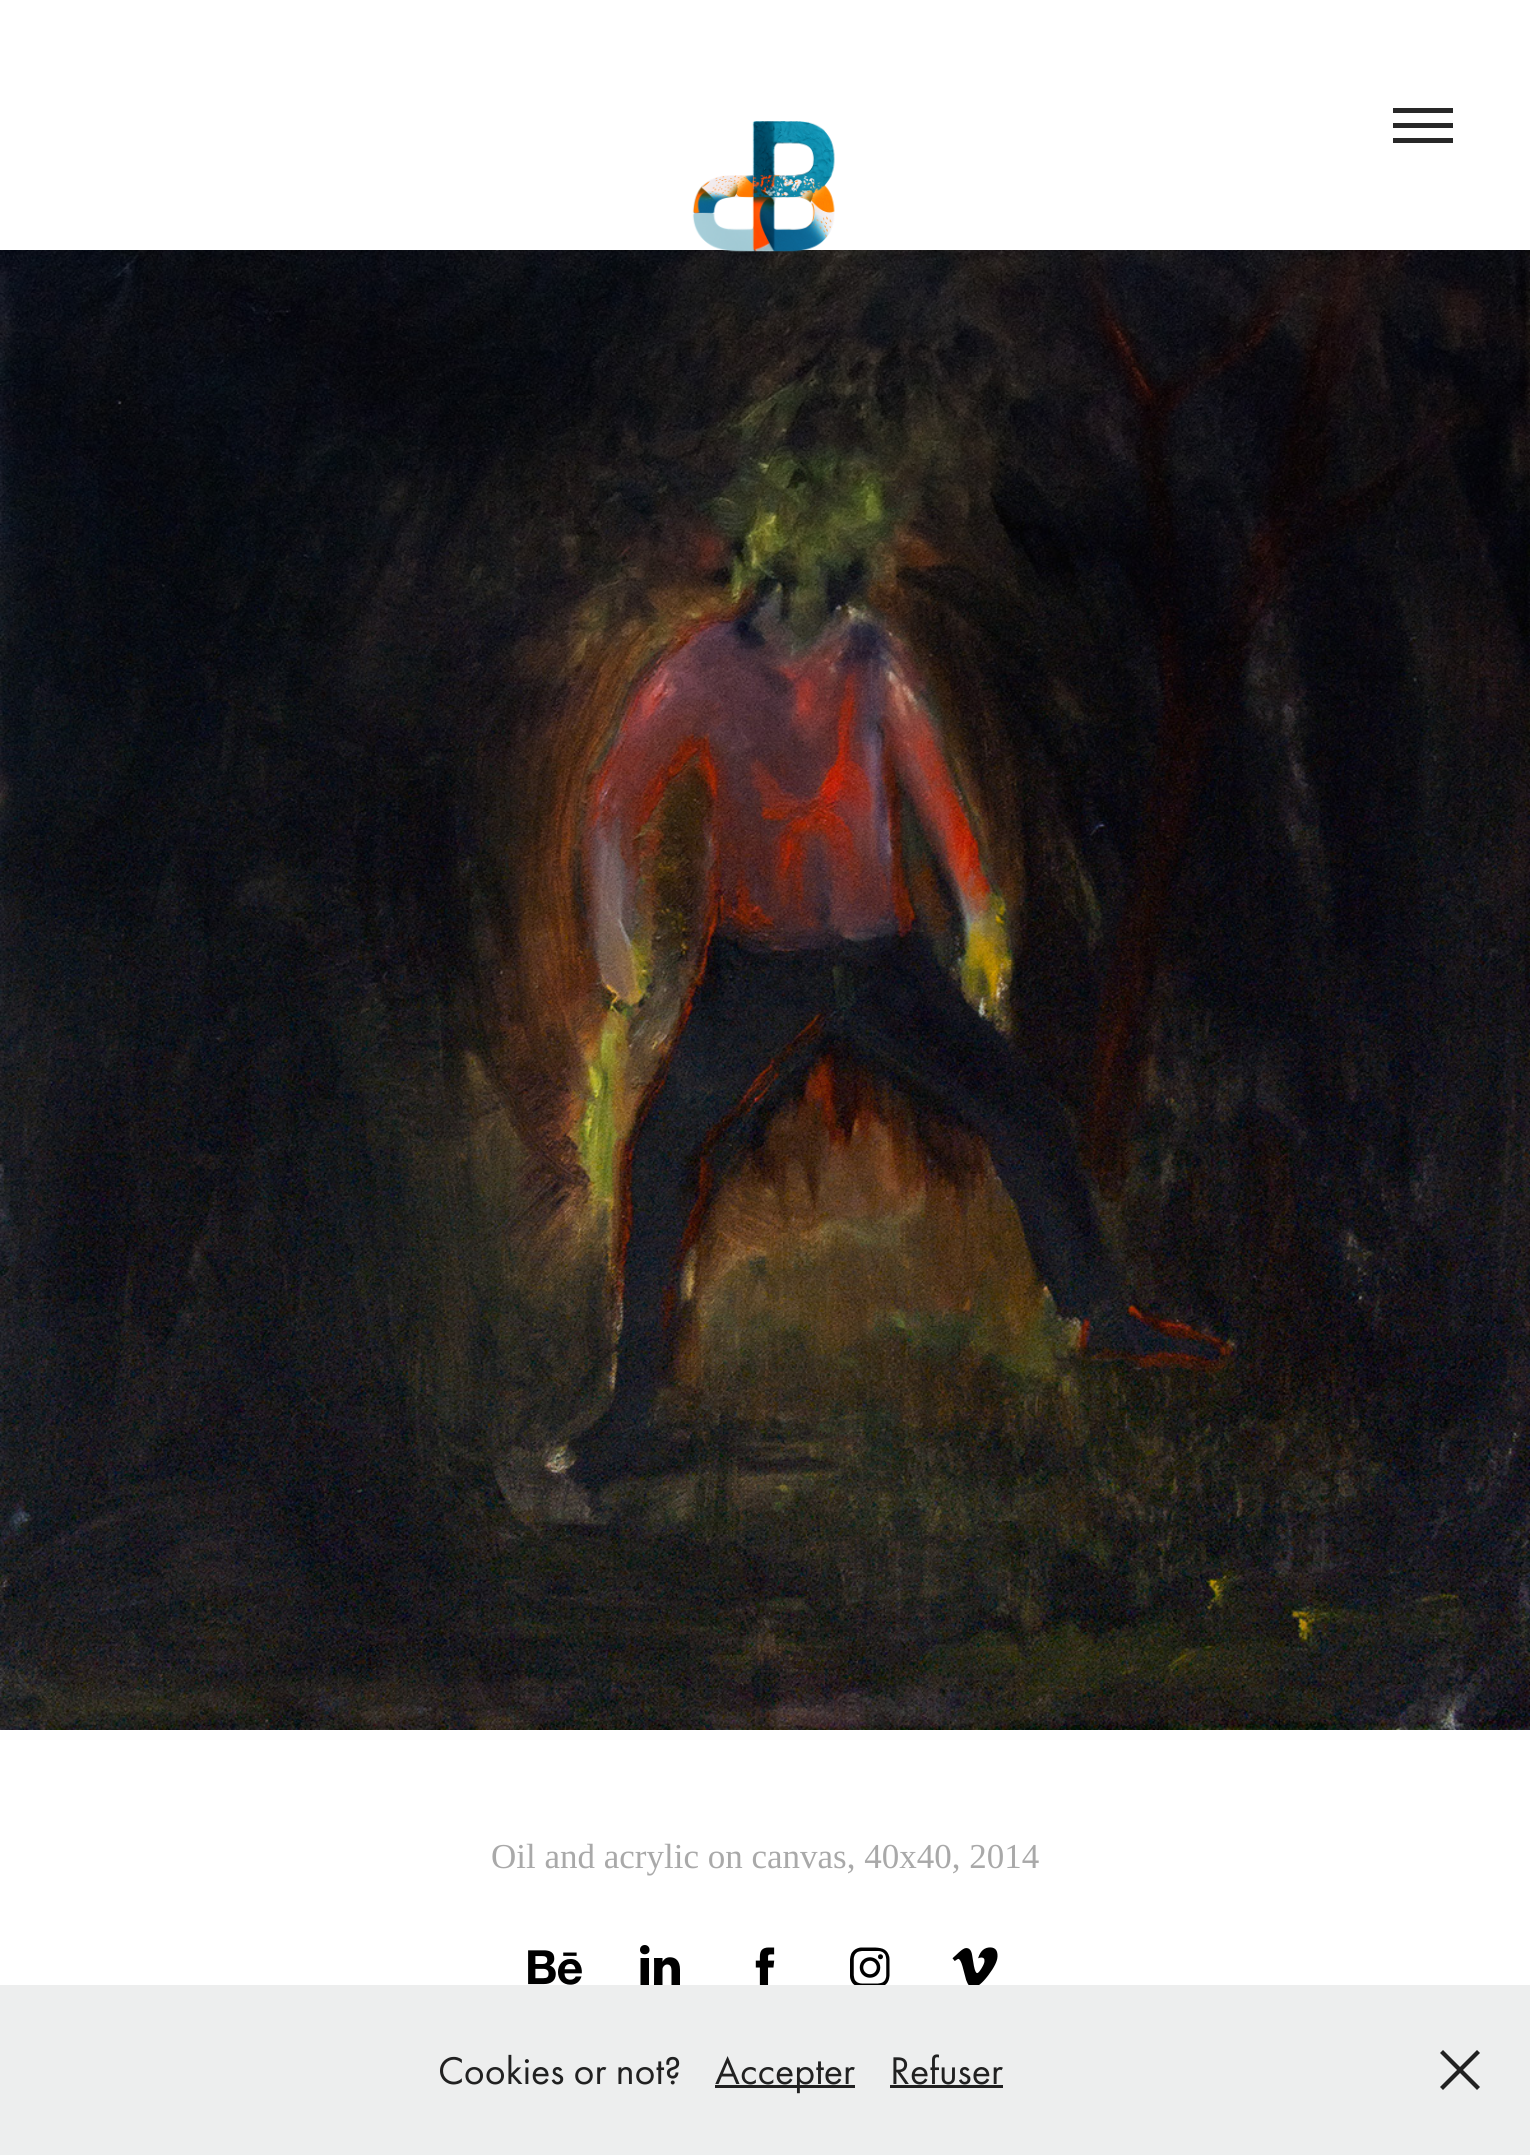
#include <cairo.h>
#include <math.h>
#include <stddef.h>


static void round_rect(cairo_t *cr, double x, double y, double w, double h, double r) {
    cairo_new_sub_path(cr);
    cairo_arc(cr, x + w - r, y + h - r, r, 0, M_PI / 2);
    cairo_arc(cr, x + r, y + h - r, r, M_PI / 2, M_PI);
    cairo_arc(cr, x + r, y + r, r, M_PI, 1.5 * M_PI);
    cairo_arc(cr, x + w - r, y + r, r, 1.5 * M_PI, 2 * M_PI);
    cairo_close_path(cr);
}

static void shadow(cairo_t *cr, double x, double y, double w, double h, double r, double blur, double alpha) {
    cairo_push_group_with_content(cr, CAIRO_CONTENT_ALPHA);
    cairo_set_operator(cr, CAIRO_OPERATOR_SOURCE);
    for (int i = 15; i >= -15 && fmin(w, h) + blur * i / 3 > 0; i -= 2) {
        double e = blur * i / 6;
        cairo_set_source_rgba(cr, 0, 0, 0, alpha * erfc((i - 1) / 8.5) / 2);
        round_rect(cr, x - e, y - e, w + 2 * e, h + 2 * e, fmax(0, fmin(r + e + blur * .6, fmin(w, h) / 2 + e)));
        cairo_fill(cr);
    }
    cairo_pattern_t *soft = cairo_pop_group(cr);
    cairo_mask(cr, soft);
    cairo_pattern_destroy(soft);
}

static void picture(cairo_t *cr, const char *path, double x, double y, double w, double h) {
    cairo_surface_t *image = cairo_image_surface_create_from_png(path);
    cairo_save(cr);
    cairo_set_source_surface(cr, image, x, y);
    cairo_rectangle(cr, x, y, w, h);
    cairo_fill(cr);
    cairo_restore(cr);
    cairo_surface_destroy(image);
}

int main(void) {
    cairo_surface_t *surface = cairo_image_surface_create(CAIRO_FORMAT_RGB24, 1530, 2155);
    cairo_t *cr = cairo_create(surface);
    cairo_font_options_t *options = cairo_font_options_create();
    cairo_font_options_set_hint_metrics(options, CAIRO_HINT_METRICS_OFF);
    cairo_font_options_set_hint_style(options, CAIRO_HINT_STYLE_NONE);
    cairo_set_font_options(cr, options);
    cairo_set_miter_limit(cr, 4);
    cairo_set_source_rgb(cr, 1, 1, 1);
    cairo_paint(cr);
    picture(cr, "img2.png", 0, 250, 1530, 1480);
    cairo_set_source_rgb(cr, 0, 0, 0);
    shadow(cr, 0, 3, 1530, 250, 0, 4, 0.1);
    cairo_set_source_rgb(cr, 1, 1, 1);
    cairo_rectangle(cr, 0, 0, 1530, 250);
    cairo_fill(cr);
    picture(cr, "img1.png", 692, 121, 143, 131);
    cairo_set_source_rgb(cr, 0.157, 0.157, 0.157);
    cairo_rectangle(cr, 1393, 108, 60, 5);
    cairo_fill(cr);
    cairo_rectangle(cr, 1393, 123, 60, 5);
    cairo_fill(cr);
    cairo_rectangle(cr, 1393, 138, 60, 5);
    cairo_fill(cr);
    cairo_select_font_face(cr, "Liberation Serif", CAIRO_FONT_SLANT_NORMAL, CAIRO_FONT_WEIGHT_NORMAL);
    cairo_set_font_size(cr, 35);
    cairo_set_source_rgb(cr, 0.663, 0.663, 0.663);
    cairo_move_to(cr, 491, 1868);
    cairo_show_text(cr, "Oil and acrylic on canvas, 40x40, 2014");
    picture(cr, "img3.png", 528, 1950, 54, 35);
    picture(cr, "img4.png", 640, 1945, 40, 40);
    picture(cr, "img5.png", 755, 1947, 20, 38);
    picture(cr, "img6.png", 850, 1947, 40, 38);
    picture(cr, "img7.png", 952, 1947, 46, 38);
    cairo_set_source_rgb(cr, 0.929, 0.933, 0.933);
    cairo_rectangle(cr, 0, 1985, 1530, 170);
    cairo_fill(cr);
    cairo_select_font_face(cr, "Futura PT", CAIRO_FONT_SLANT_NORMAL, CAIRO_FONT_WEIGHT_NORMAL);
    cairo_set_font_size(cr, 40);
    cairo_set_source_rgb(cr, 0.129, 0.129, 0.129);
    cairo_move_to(cr, 438, 2084);
    cairo_show_text(cr, "Cookies or not?");
    cairo_rectangle(cr, 715, 2085, 140, 3);
    cairo_fill(cr);
    cairo_move_to(cr, 715, 2084);
    cairo_show_text(cr, "Accepter");
    cairo_move_to(cr, 890, 2084);
    cairo_show_text(cr, "Refuser");
    cairo_rectangle(cr, 890, 2085, 113, 3);
    cairo_fill(cr);
    cairo_new_path(cr);
    cairo_move_to(cr, 1440, 2053);
    cairo_line_to(cr, 1443, 2050);
    cairo_line_to(cr, 1480, 2087);
    cairo_line_to(cr, 1477, 2090);
    cairo_close_path(cr);
    cairo_fill(cr);
    cairo_new_path(cr);
    cairo_move_to(cr, 1443, 2090);
    cairo_line_to(cr, 1440, 2087);
    cairo_line_to(cr, 1477, 2050);
    cairo_line_to(cr, 1480, 2053);
    cairo_close_path(cr);
    cairo_fill(cr);
    cairo_surface_write_to_png(surface, "page.png");
    cairo_font_options_destroy(options);
    cairo_destroy(cr);
    cairo_surface_destroy(surface);
    return 0;
}
